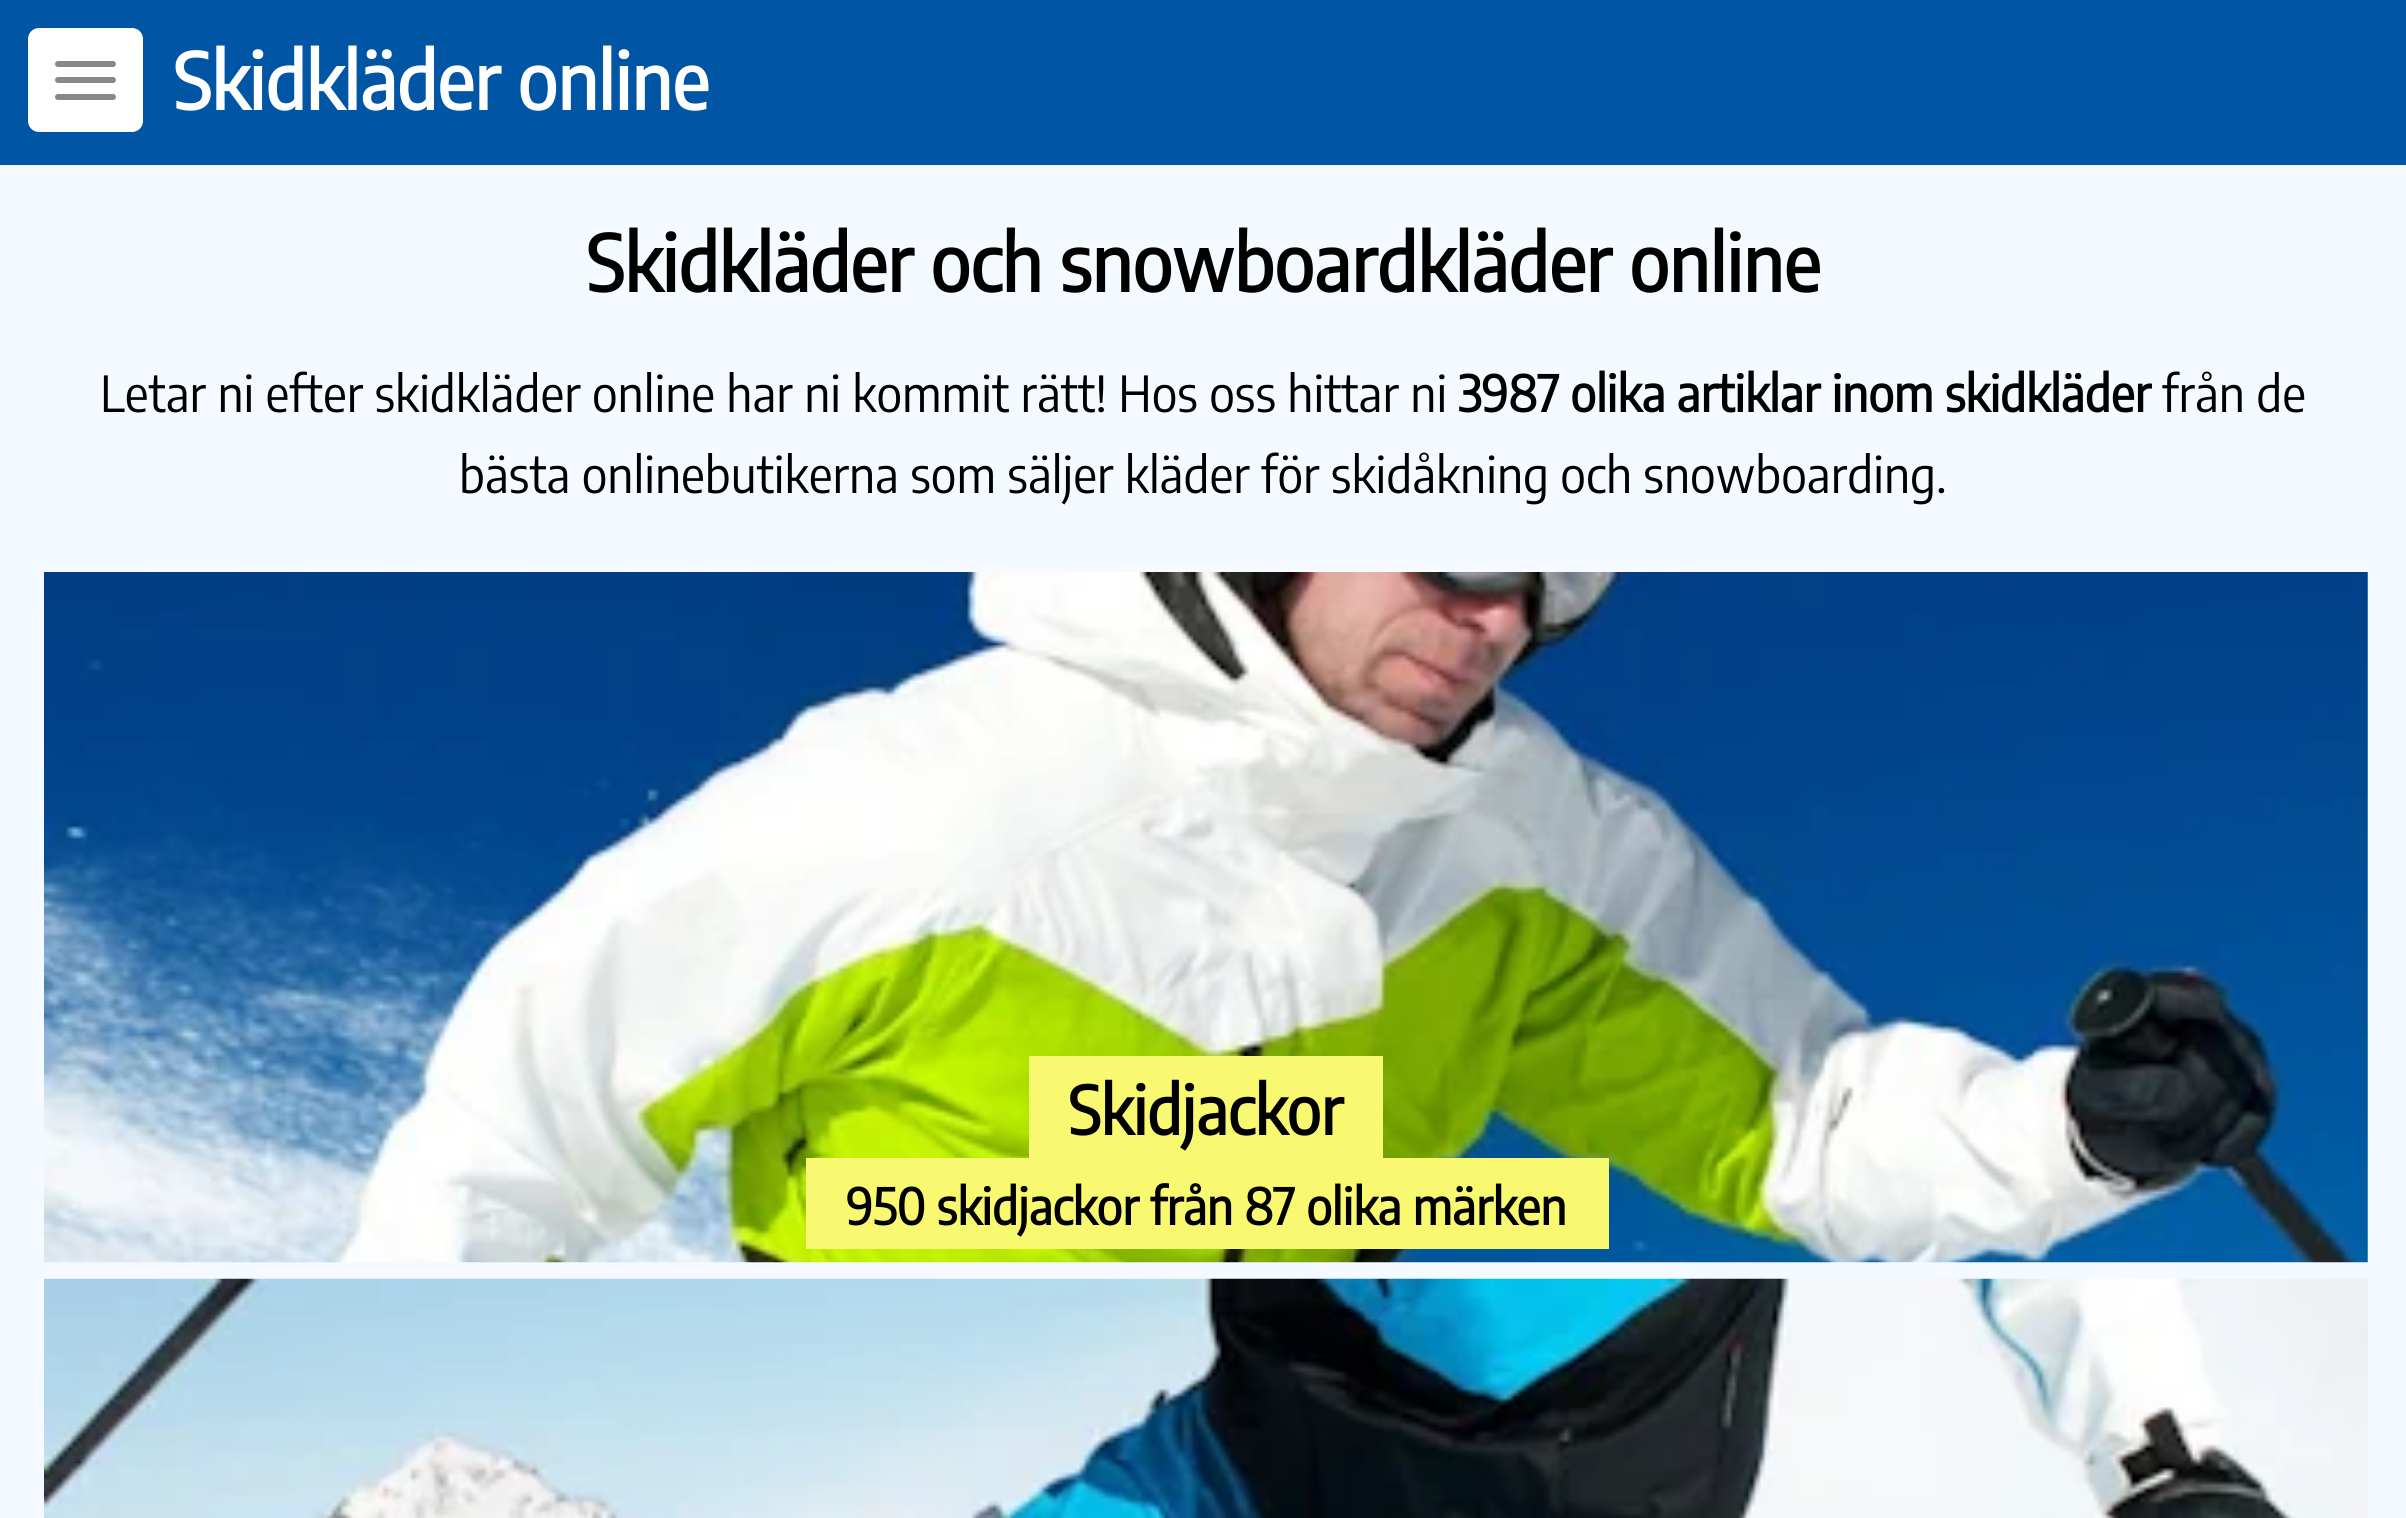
#include <cairo.h>
#include <math.h>
#include <stddef.h>


static void round_rect(cairo_t *cr, double x, double y, double w, double h, double r) {
    cairo_new_sub_path(cr);
    cairo_arc(cr, x + w - r, y + h - r, r, 0, M_PI / 2);
    cairo_arc(cr, x + r, y + h - r, r, M_PI / 2, M_PI);
    cairo_arc(cr, x + r, y + r, r, M_PI, 1.5 * M_PI);
    cairo_arc(cr, x + w - r, y + r, r, 1.5 * M_PI, 2 * M_PI);
    cairo_close_path(cr);
}

static void picture(cairo_t *cr, const char *path, double x, double y, double w, double h) {
    cairo_surface_t *image = cairo_image_surface_create_from_png(path);
    cairo_save(cr);
    cairo_set_source_surface(cr, image, x, y);
    cairo_rectangle(cr, x, y, w, h);
    cairo_fill(cr);
    cairo_restore(cr);
    cairo_surface_destroy(image);
}

int main(void) {
    cairo_surface_t *surface = cairo_image_surface_create(CAIRO_FORMAT_RGB24, 2406, 1518);
    cairo_t *cr = cairo_create(surface);
    cairo_font_options_t *options = cairo_font_options_create();
    cairo_font_options_set_hint_metrics(options, CAIRO_HINT_METRICS_OFF);
    cairo_font_options_set_hint_style(options, CAIRO_HINT_STYLE_NONE);
    cairo_set_font_options(cr, options);
    cairo_set_miter_limit(cr, 4);
    cairo_set_source_rgb(cr, 0.957, 0.98, 1);
    cairo_paint(cr);
    cairo_set_source_rgb(cr, 0, 0.333, 0.647);
    cairo_rectangle(cr, 0, 0, 2406, 165);
    cairo_fill(cr);
    cairo_set_source_rgb(cr, 1, 1, 1);
    round_rect(cr, 28, 28, 115, 104, 11);
    cairo_fill(cr);
    cairo_set_source_rgb(cr, 0.533, 0.533, 0.533);
    round_rect(cr, 55, 61, 61, 6, 3);
    cairo_fill(cr);
    round_rect(cr, 55, 77, 61, 6, 3);
    cairo_fill(cr);
    round_rect(cr, 55, 94, 61, 6, 3);
    cairo_fill(cr);
    cairo_select_font_face(cr, "Encode Sans Semi Condensed", CAIRO_FONT_SLANT_NORMAL, CAIRO_FONT_WEIGHT_BOLD);
    cairo_set_font_size(cr, 77);
    cairo_set_source_rgb(cr, 1, 1, 1);
    cairo_move_to(cr, 173, 110);
    cairo_show_text(cr, "Skidkläder online");
    cairo_set_source_rgb(cr, 0, 0, 0);
    cairo_move_to(cr, 586, 292);
    cairo_show_text(cr, "Skidkläder och snowboardkläder online");
    cairo_select_font_face(cr, "Encode Sans Semi Condensed", CAIRO_FONT_SLANT_NORMAL, CAIRO_FONT_WEIGHT_NORMAL);
    cairo_set_font_size(cr, 49.5);
    cairo_move_to(cr, 100, 412);
    cairo_show_text(cr, "Letar ni efter skidkläder online har ni kommit rätt! Hos oss hittar ni");
    cairo_select_font_face(cr, "Encode Sans Semi Condensed", CAIRO_FONT_SLANT_NORMAL, CAIRO_FONT_WEIGHT_BOLD);
    cairo_move_to(cr, 1458, 412);
    cairo_show_text(cr, "3987 olika artiklar inom skidkläder");
    cairo_select_font_face(cr, "Encode Sans Semi Condensed", CAIRO_FONT_SLANT_NORMAL, CAIRO_FONT_WEIGHT_NORMAL);
    cairo_move_to(cr, 2162, 412);
    cairo_show_text(cr, "från de");
    cairo_move_to(cr, 459, 493);
    cairo_show_text(cr, "bästa onlinebutikerna som säljer kläder för skidåkning och snowboarding.");
    picture(cr, "img1.png", 44, 572, 2324, 691);
    cairo_set_source_rgb(cr, 0.976, 0.973, 0.443);
    cairo_rectangle(cr, 1029, 1056, 354, 102);
    cairo_fill(cr);
    cairo_select_font_face(cr, "Encode Sans Semi Condensed", CAIRO_FONT_SLANT_NORMAL, CAIRO_FONT_WEIGHT_BOLD);
    cairo_set_font_size(cr, 66);
    cairo_set_source_rgb(cr, 0, 0, 0);
    cairo_move_to(cr, 1068, 1135);
    cairo_show_text(cr, "Skidjackor");
    cairo_set_source_rgb(cr, 0.976, 0.973, 0.443);
    cairo_rectangle(cr, 806, 1158, 803, 91);
    cairo_fill(cr);
    cairo_set_font_size(cr, 49.5);
    cairo_set_source_rgb(cr, 0, 0, 0);
    cairo_move_to(cr, 846, 1225);
    cairo_show_text(cr, "950 skidjackor från 87 olika märken");
    picture(cr, "img2.png", 44, 1278, 2324, 240);
    cairo_surface_write_to_png(surface, "page.png");
    cairo_font_options_destroy(options);
    cairo_destroy(cr);
    cairo_surface_destroy(surface);
    return 0;
}
